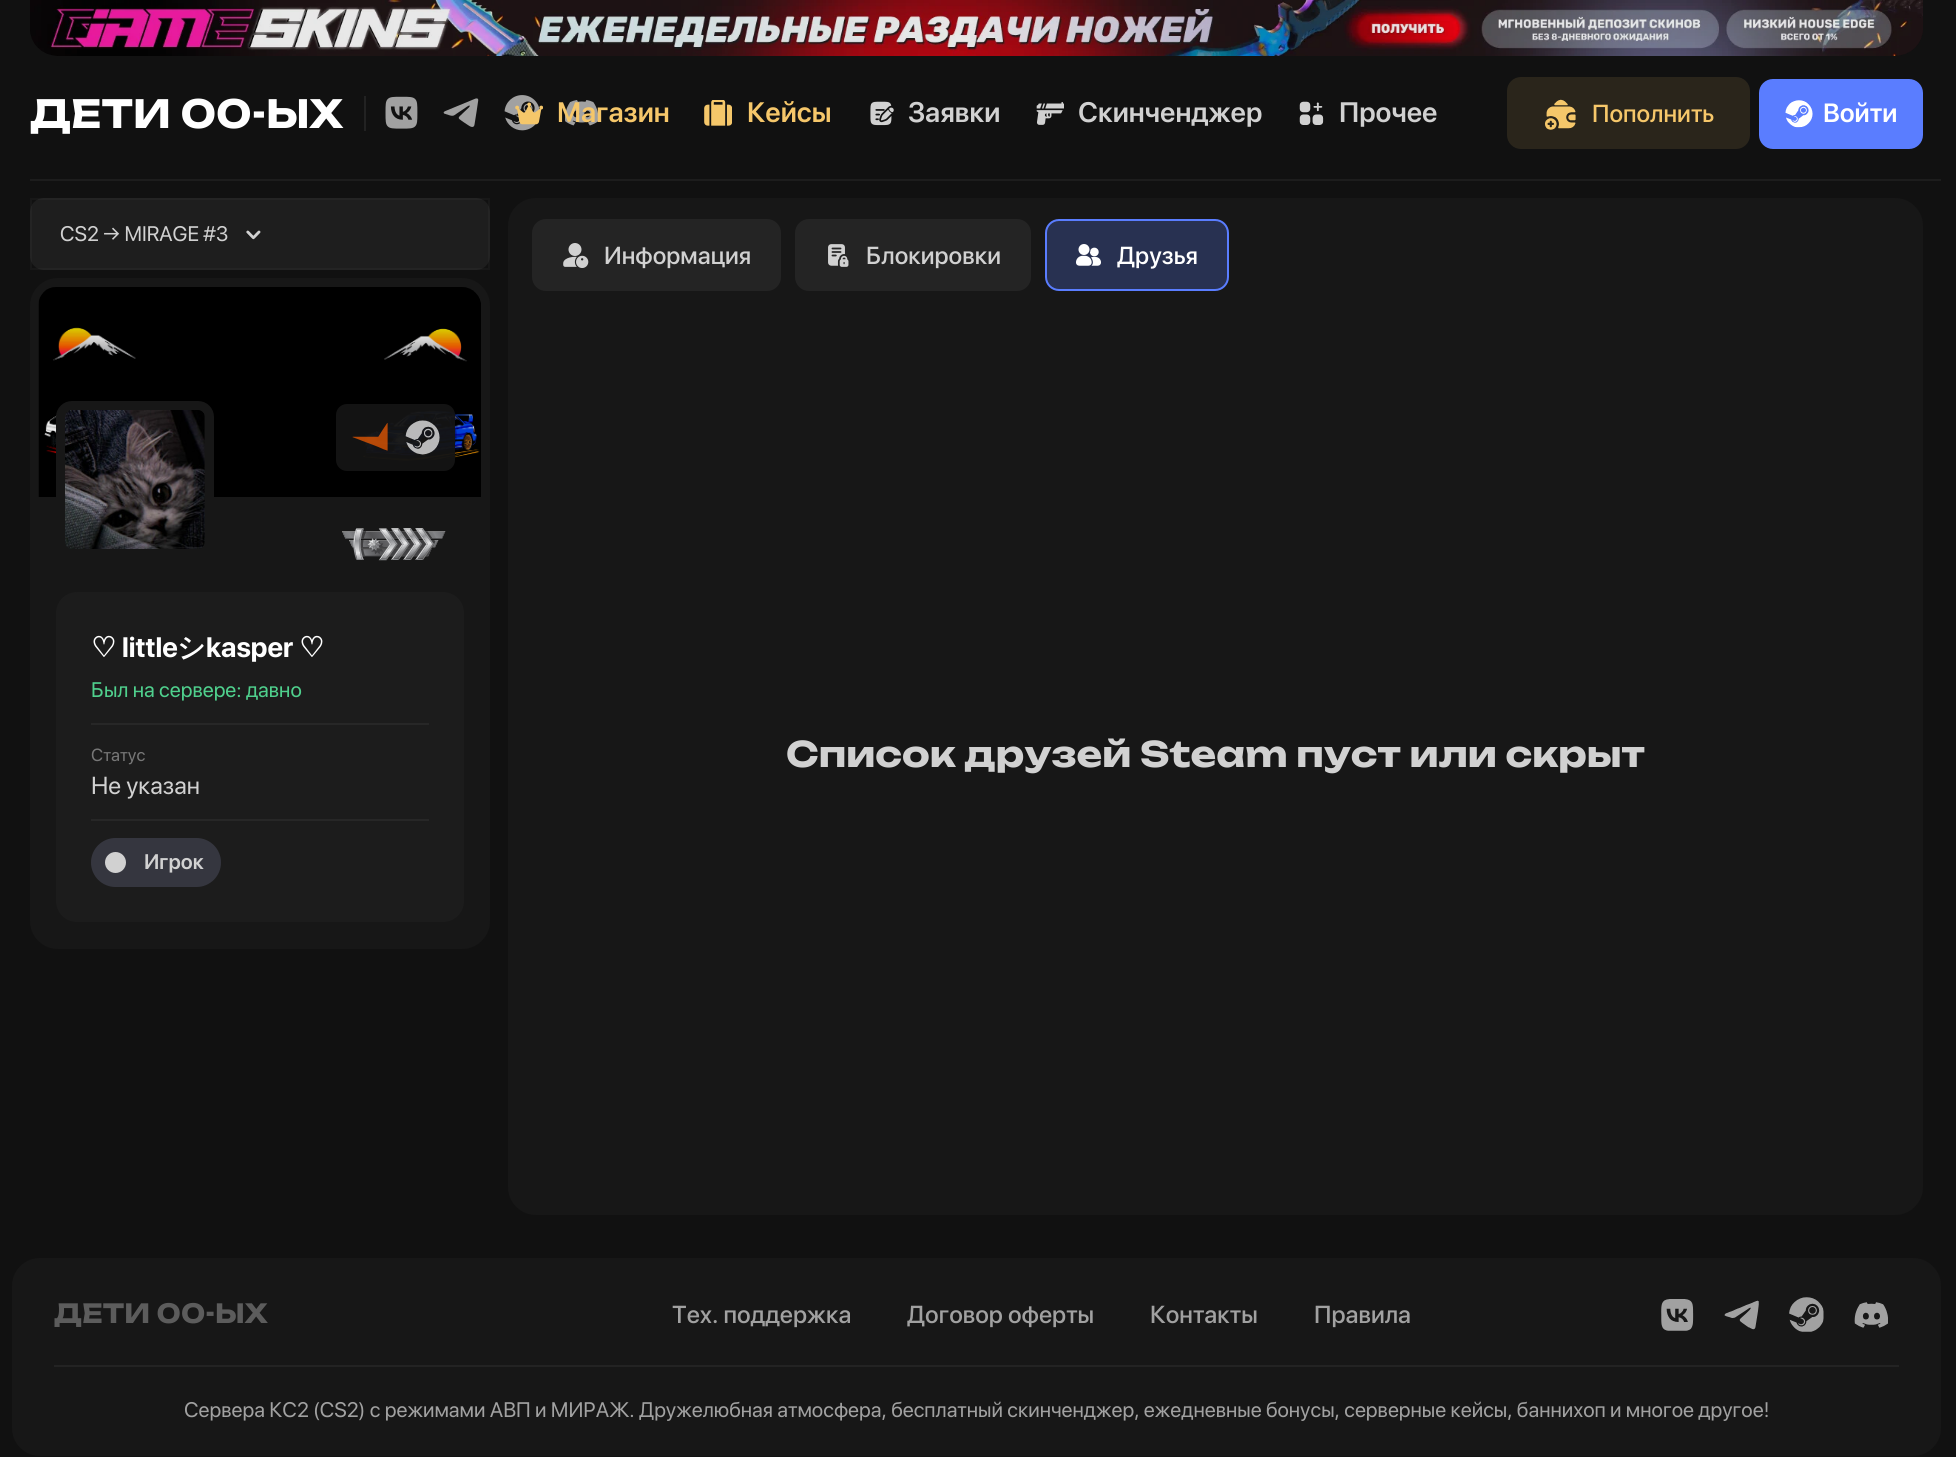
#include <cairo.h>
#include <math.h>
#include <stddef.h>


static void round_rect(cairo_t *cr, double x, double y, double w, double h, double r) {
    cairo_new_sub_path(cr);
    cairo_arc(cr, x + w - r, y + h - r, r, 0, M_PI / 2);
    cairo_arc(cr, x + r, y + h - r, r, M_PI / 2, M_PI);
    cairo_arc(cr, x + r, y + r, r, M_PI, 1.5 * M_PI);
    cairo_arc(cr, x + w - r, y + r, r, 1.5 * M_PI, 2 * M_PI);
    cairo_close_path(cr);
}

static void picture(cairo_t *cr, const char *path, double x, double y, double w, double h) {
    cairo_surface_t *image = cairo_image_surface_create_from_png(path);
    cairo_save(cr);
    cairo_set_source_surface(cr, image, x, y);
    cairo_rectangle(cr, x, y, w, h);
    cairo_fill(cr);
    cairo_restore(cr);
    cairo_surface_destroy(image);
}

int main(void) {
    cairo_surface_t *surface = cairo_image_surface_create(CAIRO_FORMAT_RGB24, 1956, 1457);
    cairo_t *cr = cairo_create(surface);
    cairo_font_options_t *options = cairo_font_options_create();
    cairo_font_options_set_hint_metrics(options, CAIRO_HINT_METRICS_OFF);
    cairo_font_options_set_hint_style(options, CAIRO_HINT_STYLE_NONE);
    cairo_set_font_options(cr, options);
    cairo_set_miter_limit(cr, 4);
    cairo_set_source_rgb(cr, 0.067, 0.067, 0.067);
    cairo_paint(cr);
    picture(cr, "img1.png", 30, 0, 1893, 56);
    cairo_select_font_face(cr, "Unbounded", CAIRO_FONT_SLANT_NORMAL, CAIRO_FONT_WEIGHT_BOLD);
    cairo_set_font_size(cr, 38.5);
    cairo_set_source_rgb(cr, 1, 1, 1);
    cairo_move_to(cr, 30, 128);
    cairo_show_text(cr, "Д");
    cairo_move_to(cr, 71, 128);
    cairo_show_text(cr, "ЕТИ 00-ЫХ");
    cairo_set_source_rgb(cr, 0.133, 0.133, 0.133);
    cairo_rectangle(cr, 364, 96, 2, 35);
    cairo_fill(cr);
    picture(cr, "img2.png", 385, 96, 33, 33);
    picture(cr, "img3.png", 443, 98, 36, 29);
    picture(cr, "img4.png", 504, 95, 35, 36);
    picture(cr, "img5.png", 565, 100, 34, 26);
    picture(cr, "img6.png", 515, 102, 28, 23);
    cairo_select_font_face(cr, "SF Pro Display SemiBold", CAIRO_FONT_SLANT_NORMAL, CAIRO_FONT_WEIGHT_NORMAL);
    cairo_set_font_size(cr, 28);
    cairo_set_source_rgb(cr, 0.961, 0.78, 0.416);
    cairo_move_to(cr, 557, 122);
    cairo_show_text(cr, "Магазин");
    picture(cr, "img7.png", 704, 100, 28, 26);
    cairo_move_to(cr, 747, 122);
    cairo_show_text(cr, "Кейсы");
    picture(cr, "img8.png", 870, 101, 24, 25);
    cairo_set_source_rgb(cr, 0.82, 0.82, 0.82);
    cairo_move_to(cr, 908, 122);
    cairo_show_text(cr, "Заявки");
    picture(cr, "img9.png", 1036, 102, 28, 23);
    cairo_move_to(cr, 1078, 122);
    cairo_show_text(cr, "Скинченджер");
    picture(cr, "img10.png", 1299, 101, 25, 24);
    cairo_move_to(cr, 1339, 122);
    cairo_show_text(cr, "Прочее");
    cairo_set_source_rgb(cr, 0.165, 0.145, 0.106);
    round_rect(cr, 1507, 77, 243, 72, 14);
    cairo_fill(cr);
    picture(cr, "img11.png", 1545, 99, 31, 31);
    cairo_select_font_face(cr, "SF Pro Display Medium", CAIRO_FONT_SLANT_NORMAL, CAIRO_FONT_WEIGHT_NORMAL);
    cairo_set_font_size(cr, 24.5);
    cairo_set_source_rgb(cr, 0.961, 0.78, 0.416);
    cairo_move_to(cr, 1592, 122);
    cairo_show_text(cr, "Пополнить");
    cairo_set_source_rgb(cr, 0.353, 0.49, 1);
    round_rect(cr, 1759, 79, 164, 70, 14);
    cairo_fill(cr);
    picture(cr, "img12.png", 1785, 100, 28, 28);
    cairo_select_font_face(cr, "SF Pro Display SemiBold", CAIRO_FONT_SLANT_NORMAL, CAIRO_FONT_WEIGHT_NORMAL);
    cairo_set_font_size(cr, 26.25);
    cairo_set_source_rgb(cr, 1, 1, 1);
    cairo_move_to(cr, 1823, 122);
    cairo_show_text(cr, "Войти");
    cairo_set_source_rgb(cr, 0.114, 0.114, 0.114);
    cairo_rectangle(cr, 30, 179, 1911, 2);
    cairo_fill(cr);
    cairo_set_source_rgb(cr, 0.118, 0.118, 0.118);
    round_rect(cr, 30, 198, 460, 72, 14);
    cairo_fill(cr);
    cairo_rectangle(cr, 31, 199, 458, 70);
    cairo_set_source_rgba(cr, 1, 1, 1, 0.03);
    cairo_stroke(cr);
    cairo_select_font_face(cr, "SF Pro Display", CAIRO_FONT_SLANT_NORMAL, CAIRO_FONT_WEIGHT_NORMAL);
    cairo_set_font_size(cr, 21);
    cairo_set_source_rgb(cr, 0.82, 0.82, 0.82);
    cairo_move_to(cr, 60, 241);
    cairo_show_text(cr, "CS2 → MIRAGE #3");
    picture(cr, "img13.png", 246, 230, 15, 10);
    cairo_set_source_rgb(cr, 0.09, 0.09, 0.09);
    round_rect(cr, 30, 278, 460, 671, 28);
    cairo_fill(cr);
    picture(cr, "img14.png", 38, 287, 443, 210);
    round_rect(cr, 61.5, 406.5, 147, 147, 10.5);
    cairo_set_line_width(cr, 7);
    cairo_stroke(cr);
    cairo_new_path(cr);
    cairo_move_to(cr, 203, 541);
    cairo_line_to(cr, 205, 541);
    cairo_line_to(cr, 205, 417);
    cairo_curve_to(cr, 205, 413, 202, 410, 198, 410);
    cairo_line_to(cr, 72, 410);
    cairo_curve_to(cr, 68, 410, 65, 413, 65, 417);
    cairo_line_to(cr, 65, 543);
    cairo_curve_to(cr, 65, 547, 68, 550, 72, 550);
    cairo_line_to(cr, 196, 550);
    cairo_curve_to(cr, 196, 545, 198, 541, 203, 541);
    cairo_close_path(cr);
    cairo_fill(cr);
    picture(cr, "img15.png", 65, 410, 140, 139);
    round_rect(cr, 60.5, 405.5, 149, 148, 11.5);
    cairo_set_line_width(cr, 9);
    cairo_stroke(cr);
    cairo_set_source_rgba(cr, 0.078, 0.078, 0.078, 0.96);
    round_rect(cr, 336, 404, 119, 67, 11);
    cairo_fill(cr);
    picture(cr, "img16.png", 352, 423, 36, 28);
    picture(cr, "img17.png", 405, 420, 35, 35);
    picture(cr, "img18.png", 342, 528, 104, 33);
    cairo_set_source_rgb(cr, 0.11, 0.11, 0.11);
    round_rect(cr, 56, 592, 408, 330, 21);
    cairo_fill(cr);
    cairo_select_font_face(cr, "DejaVu Sans", CAIRO_FONT_SLANT_NORMAL, CAIRO_FONT_WEIGHT_BOLD);
    cairo_set_font_size(cr, 28);
    cairo_set_source_rgb(cr, 1, 1, 1);
    cairo_move_to(cr, 91, 657);
    cairo_show_text(cr, "♡");
    cairo_select_font_face(cr, "SF Pro Display", CAIRO_FONT_SLANT_NORMAL, CAIRO_FONT_WEIGHT_BOLD);
    cairo_move_to(cr, 122, 657);
    cairo_show_text(cr, "little");
    cairo_select_font_face(cr, "WenQuanYi Zen Hei", CAIRO_FONT_SLANT_NORMAL, CAIRO_FONT_WEIGHT_BOLD);
    cairo_move_to(cr, 177, 657);
    cairo_show_text(cr, "シ");
    cairo_select_font_face(cr, "SF Pro Display", CAIRO_FONT_SLANT_NORMAL, CAIRO_FONT_WEIGHT_BOLD);
    cairo_move_to(cr, 206, 657);
    cairo_show_text(cr, "kasper");
    cairo_select_font_face(cr, "DejaVu Sans", CAIRO_FONT_SLANT_NORMAL, CAIRO_FONT_WEIGHT_BOLD);
    cairo_move_to(cr, 299, 657);
    cairo_show_text(cr, "♡");
    cairo_select_font_face(cr, "SF Pro Display", CAIRO_FONT_SLANT_NORMAL, CAIRO_FONT_WEIGHT_NORMAL);
    cairo_set_font_size(cr, 21);
    cairo_set_source_rgb(cr, 0.31, 0.816, 0.553);
    cairo_move_to(cr, 91, 697);
    cairo_show_text(cr, "Был на сервере: давно");
    cairo_set_source_rgb(cr, 0.153, 0.153, 0.153);
    cairo_rectangle(cr, 91, 723, 338, 2);
    cairo_fill(cr);
    cairo_set_font_size(cr, 17.5);
    cairo_set_source_rgb(cr, 0.467, 0.467, 0.467);
    cairo_move_to(cr, 91, 761);
    cairo_show_text(cr, "Статус");
    cairo_set_font_size(cr, 24.5);
    cairo_set_source_rgb(cr, 0.82, 0.82, 0.82);
    cairo_move_to(cr, 91, 794);
    cairo_show_text(cr, "Не указан");
    cairo_set_source_rgb(cr, 0.153, 0.153, 0.153);
    cairo_rectangle(cr, 91, 819, 338, 2);
    cairo_fill(cr);
    cairo_set_source_rgb(cr, 0.208, 0.212, 0.247);
    round_rect(cr, 91, 838, 130, 49, 24.5);
    cairo_fill(cr);
    cairo_set_source_rgb(cr, 0.82, 0.82, 0.82);
    cairo_arc(cr, 115.5, 862.5, 10.5, 0, 2 * M_PI);
    cairo_fill(cr);
    cairo_select_font_face(cr, "SF Pro Display SemiBold", CAIRO_FONT_SLANT_NORMAL, CAIRO_FONT_WEIGHT_NORMAL);
    cairo_set_font_size(cr, 21);
    cairo_move_to(cr, 144, 869);
    cairo_show_text(cr, "Игрок");
    cairo_set_source_rgb(cr, 0.09, 0.09, 0.09);
    round_rect(cr, 508, 198, 1415, 1017, 28);
    cairo_fill(cr);
    cairo_set_source_rgb(cr, 0.141, 0.141, 0.141);
    round_rect(cr, 532, 219, 249, 72, 14);
    cairo_fill(cr);
    picture(cr, "img19.png", 563, 243, 26, 25);
    cairo_select_font_face(cr, "SF Pro Display Medium", CAIRO_FONT_SLANT_NORMAL, CAIRO_FONT_WEIGHT_NORMAL);
    cairo_set_font_size(cr, 24.5);
    cairo_set_source_rgb(cr, 0.82, 0.82, 0.82);
    cairo_move_to(cr, 604, 264);
    cairo_show_text(cr, "Информация");
    cairo_set_source_rgb(cr, 0.141, 0.141, 0.141);
    round_rect(cr, 795, 219, 236, 72, 14);
    cairo_fill(cr);
    picture(cr, "img20.png", 828, 244, 21, 23);
    cairo_set_source_rgb(cr, 0.82, 0.82, 0.82);
    cairo_move_to(cr, 866, 264);
    cairo_show_text(cr, "Блокировки");
    cairo_set_source_rgb(cr, 0.157, 0.192, 0.318);
    round_rect(cr, 1046, 220, 182, 70, 13);
    cairo_fill_preserve(cr);
    cairo_set_source_rgb(cr, 0.353, 0.49, 1);
    cairo_set_line_width(cr, 2);
    cairo_stroke(cr);
    picture(cr, "img21.png", 1076, 244, 25, 22);
    cairo_set_source_rgb(cr, 1, 1, 1);
    cairo_move_to(cr, 1117, 264);
    cairo_show_text(cr, "Друзья");
    cairo_select_font_face(cr, "Unbounded", CAIRO_FONT_SLANT_NORMAL, CAIRO_FONT_WEIGHT_BOLD);
    cairo_set_font_size(cr, 35);
    cairo_set_source_rgb(cr, 0.82, 0.82, 0.82);
    cairo_move_to(cr, 786, 767);
    cairo_show_text(cr, "Список друзей Steam пуст или скрыт");
    cairo_set_source_rgb(cr, 0.09, 0.09, 0.09);
    round_rect(cr, 12, 1258, 1929, 198, 28);
    cairo_fill(cr);
    cairo_set_font_size(cr, 26.25);
    cairo_set_source_rgb(cr, 0.361, 0.361, 0.361);
    cairo_move_to(cr, 54, 1323);
    cairo_show_text(cr, "ДЕТИ 00-ЫХ");
    cairo_select_font_face(cr, "SF Pro Display Medium", CAIRO_FONT_SLANT_NORMAL, CAIRO_FONT_WEIGHT_NORMAL);
    cairo_set_font_size(cr, 24.5);
    cairo_set_source_rgb(cr, 0.631, 0.631, 0.631);
    cairo_move_to(cr, 672, 1323);
    cairo_show_text(cr, "Тех. поддержка");
    cairo_move_to(cr, 907, 1323);
    cairo_show_text(cr, "Договор оферты");
    cairo_move_to(cr, 1150, 1323);
    cairo_show_text(cr, "Контакты");
    cairo_move_to(cr, 1314, 1323);
    cairo_show_text(cr, "Правила");
    picture(cr, "img22.png", 1661, 1299, 33, 32);
    picture(cr, "img23.png", 1724, 1300, 35, 30);
    picture(cr, "img24.png", 1789, 1297, 35, 35);
    picture(cr, "img25.png", 1854, 1302, 34, 26);
    cairo_set_source_rgb(cr, 0.137, 0.137, 0.137);
    cairo_rectangle(cr, 54, 1365, 1845, 2);
    cairo_fill(cr);
    cairo_select_font_face(cr, "SF Pro Display", CAIRO_FONT_SLANT_NORMAL, CAIRO_FONT_WEIGHT_NORMAL);
    cairo_set_font_size(cr, 21);
    cairo_set_source_rgb(cr, 0.631, 0.631, 0.631);
    cairo_move_to(cr, 184, 1417);
    cairo_show_text(cr, "Сервера КС2 (CS2) с режимами АВП и МИРАЖ. Дружелюбная атмосфера, бесплатный скинченджер, ежедневные бонусы, серверные кейсы, баннихоп и многое другое!");
    cairo_surface_write_to_png(surface, "page.png");
    cairo_font_options_destroy(options);
    cairo_destroy(cr);
    cairo_surface_destroy(surface);
    return 0;
}
